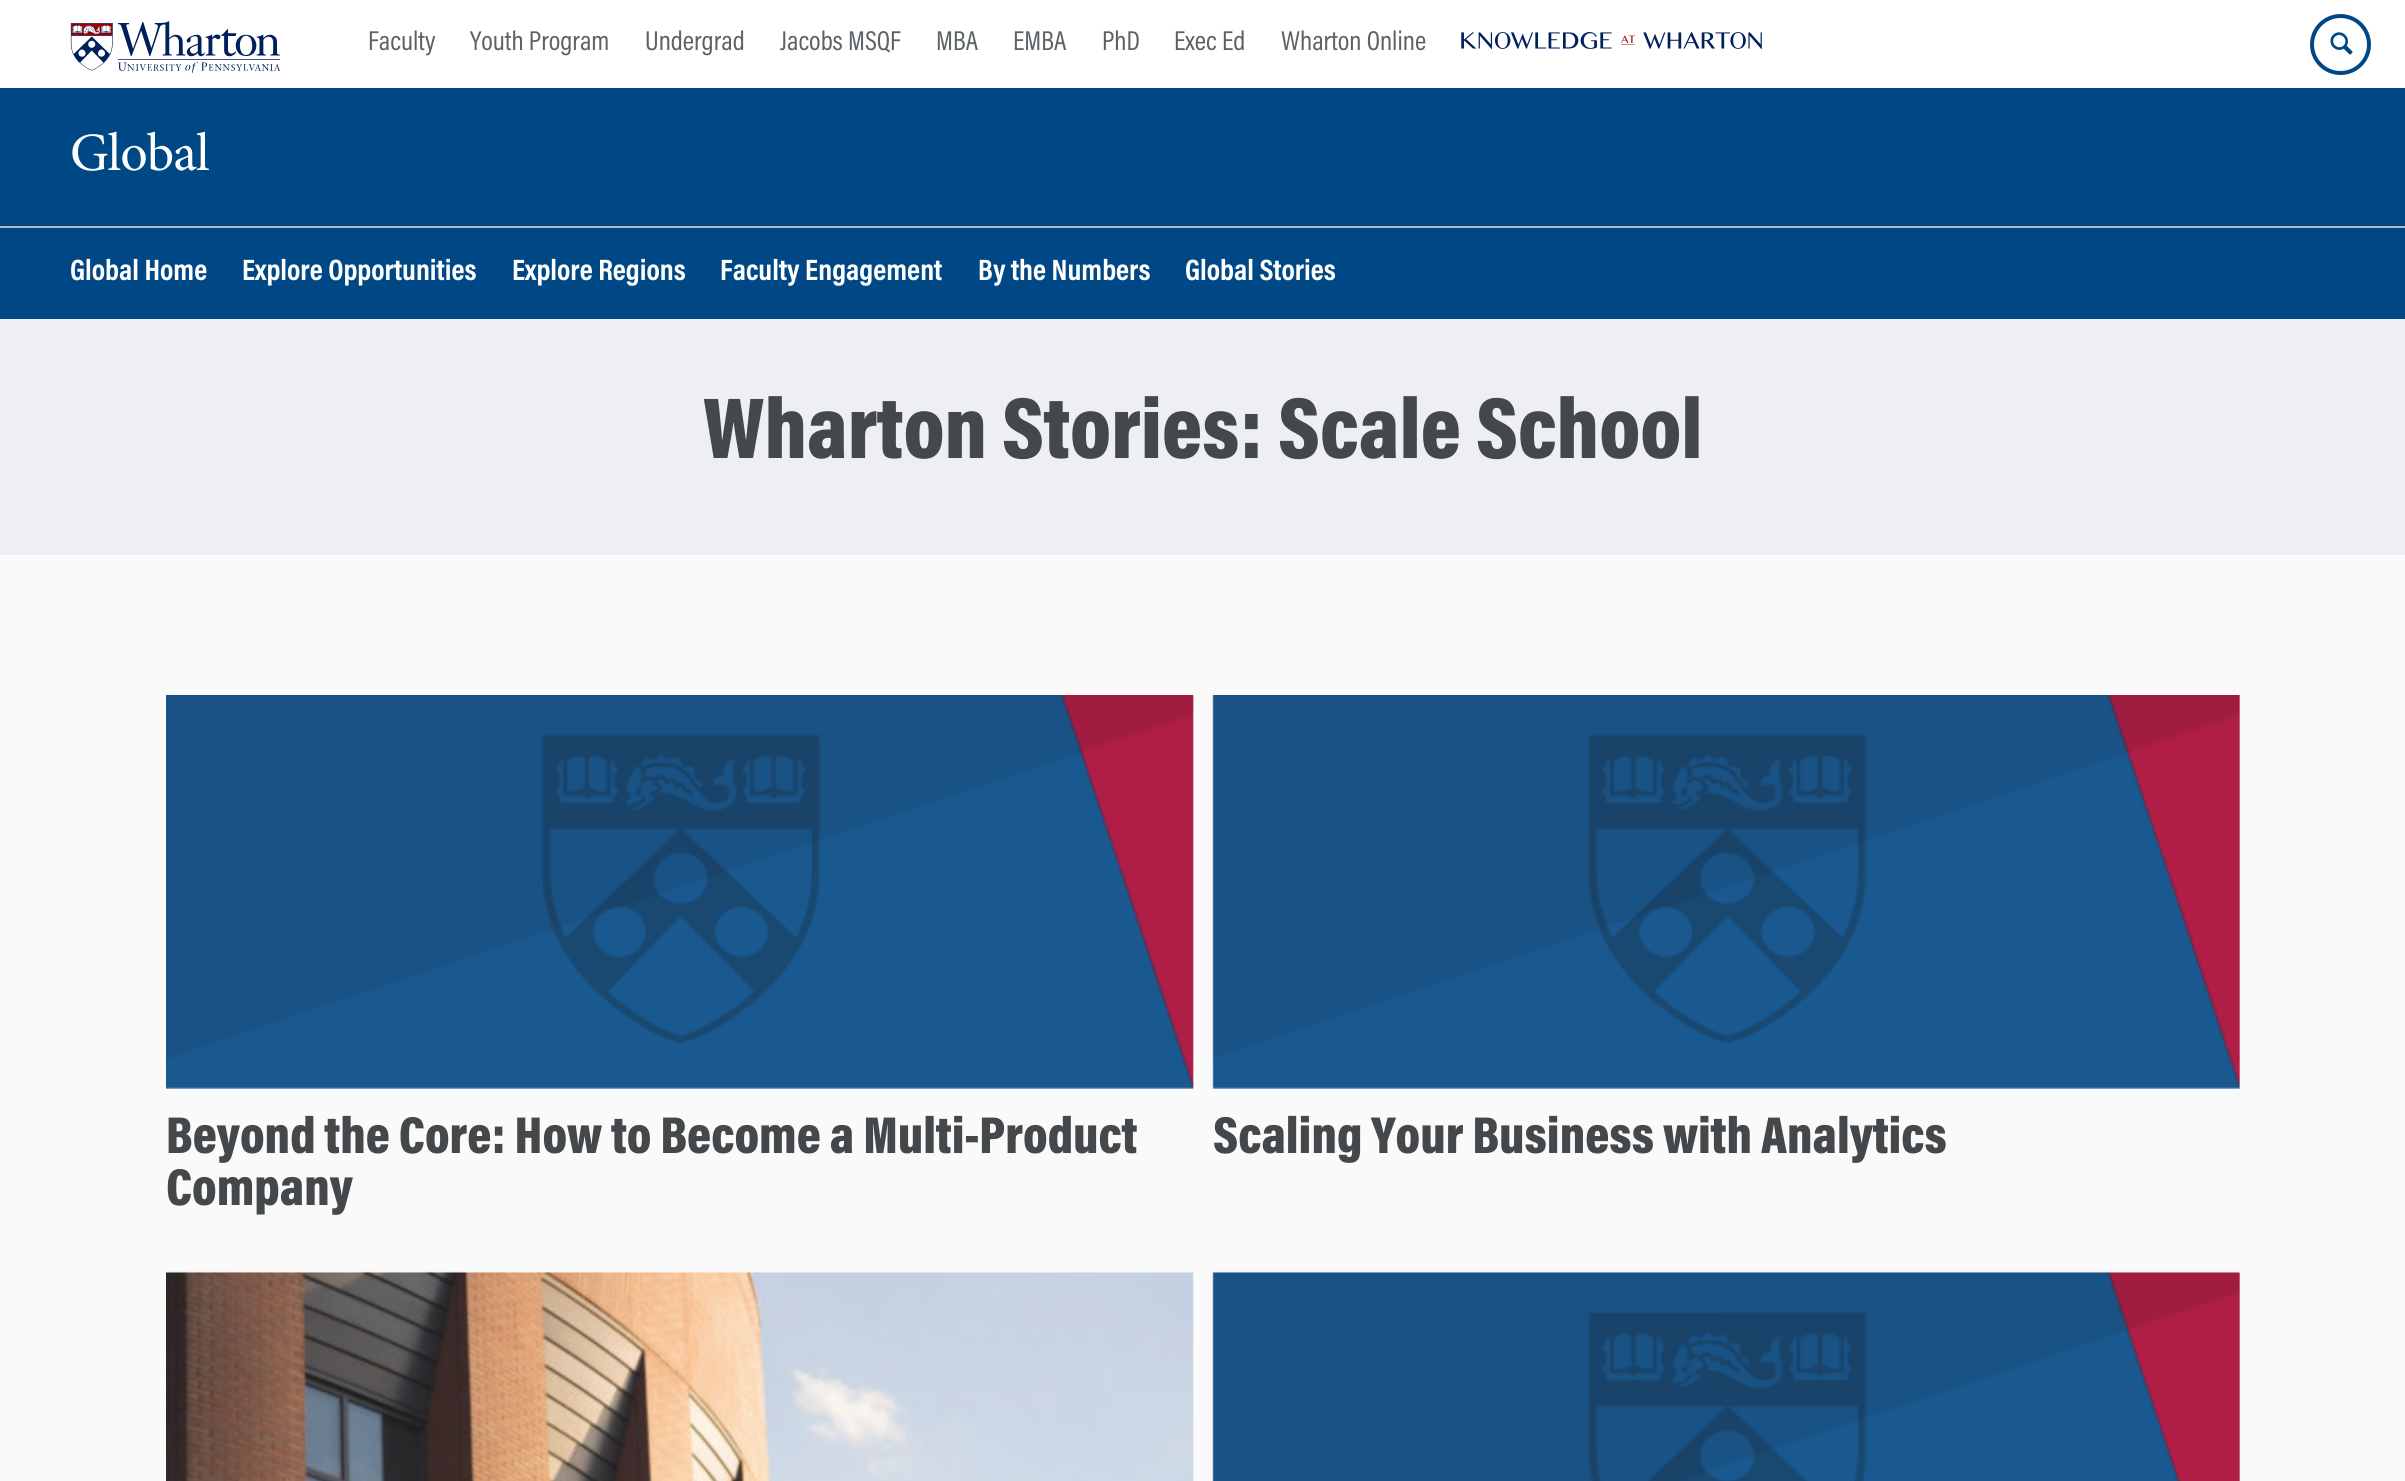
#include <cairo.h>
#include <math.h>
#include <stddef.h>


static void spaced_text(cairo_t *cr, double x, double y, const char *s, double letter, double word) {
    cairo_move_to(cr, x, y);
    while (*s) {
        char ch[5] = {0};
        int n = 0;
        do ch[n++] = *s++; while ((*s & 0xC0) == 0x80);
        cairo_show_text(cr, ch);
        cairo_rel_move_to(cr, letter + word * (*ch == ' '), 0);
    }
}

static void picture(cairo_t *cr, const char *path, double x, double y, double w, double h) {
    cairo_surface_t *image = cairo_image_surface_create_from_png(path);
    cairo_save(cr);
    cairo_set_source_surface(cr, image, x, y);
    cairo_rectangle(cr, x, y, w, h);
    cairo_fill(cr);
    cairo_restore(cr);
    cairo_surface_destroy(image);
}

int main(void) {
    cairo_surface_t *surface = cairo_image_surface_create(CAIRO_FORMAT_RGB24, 2405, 1481);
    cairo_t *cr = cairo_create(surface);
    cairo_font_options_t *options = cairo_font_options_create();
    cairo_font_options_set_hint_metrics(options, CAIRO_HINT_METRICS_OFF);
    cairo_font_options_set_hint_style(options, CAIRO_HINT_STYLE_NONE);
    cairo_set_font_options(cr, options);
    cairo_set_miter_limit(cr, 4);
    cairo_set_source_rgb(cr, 0.98, 0.98, 0.98);
    cairo_paint(cr);
    cairo_set_source_rgb(cr, 1, 1, 1);
    cairo_rectangle(cr, 0, 0, 2405, 88);
    cairo_fill(cr);
    picture(cr, "img1.png", 70, 21, 210, 53);
    cairo_select_font_face(cr, "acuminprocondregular", CAIRO_FONT_SLANT_NORMAL, CAIRO_FONT_WEIGHT_NORMAL);
    cairo_set_font_size(cr, 27.5);
    cairo_set_source_rgb(cr, 0.361, 0.384, 0.4);
    cairo_move_to(cr, 368, 50);
    cairo_show_text(cr, "Faculty");
    cairo_move_to(cr, 470, 50);
    cairo_show_text(cr, "Youth Program");
    cairo_move_to(cr, 645, 50);
    cairo_show_text(cr, "Undergrad");
    cairo_move_to(cr, 780, 50);
    cairo_show_text(cr, "Jacobs MSQF");
    cairo_move_to(cr, 936, 50);
    cairo_show_text(cr, "MBA");
    cairo_move_to(cr, 1013, 50);
    cairo_show_text(cr, "EMBA");
    cairo_move_to(cr, 1102, 50);
    cairo_show_text(cr, "PhD");
    cairo_move_to(cr, 1174, 50);
    cairo_show_text(cr, "Exec Ed");
    cairo_move_to(cr, 1281, 50);
    cairo_show_text(cr, "Wharton Online");
    picture(cr, "img2.png", 1461, 32, 301, 17);
    cairo_arc(cr, 2340.5, 44.5, 28.5, 0, 2 * M_PI);
    cairo_set_source_rgb(cr, 0, 0.278, 0.522);
    cairo_set_line_width(cr, 4);
    cairo_stroke(cr);
    picture(cr, "img3.png", 2330, 32, 23, 23);
    cairo_rectangle(cr, 0, 88, 2405, 231);
    cairo_fill(cr);
    cairo_set_source_rgb(cr, 0.706, 0.718, 0.745);
    cairo_rectangle(cr, 0, 226, 2405, 2);
    cairo_fill(cr);
    cairo_select_font_face(cr, "minion", CAIRO_FONT_SLANT_NORMAL, CAIRO_FONT_WEIGHT_NORMAL);
    cairo_set_font_size(cr, 54);
    cairo_set_source_rgb(cr, 1, 1, 1);
    spaced_text(cr, 70, 170, "Global", -1, 0);
    cairo_select_font_face(cr, "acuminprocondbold", CAIRO_FONT_SLANT_NORMAL, CAIRO_FONT_WEIGHT_BOLD);
    cairo_set_font_size(cr, 29.75);
    cairo_move_to(cr, 70, 280);
    cairo_show_text(cr, "Global Home");
    cairo_move_to(cr, 242, 280);
    cairo_show_text(cr, "Explore Opportunities");
    cairo_move_to(cr, 512, 280);
    cairo_show_text(cr, "Explore Regions");
    cairo_move_to(cr, 720, 280);
    cairo_show_text(cr, "Faculty Engagement");
    cairo_move_to(cr, 978, 280);
    cairo_show_text(cr, "By the Numbers");
    cairo_move_to(cr, 1185, 280);
    cairo_show_text(cr, "Global Stories");
    cairo_set_source_rgb(cr, 0.929, 0.937, 0.949);
    cairo_rectangle(cr, 0, 319, 2405, 236);
    cairo_fill(cr);
    cairo_select_font_face(cr, "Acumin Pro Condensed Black", CAIRO_FONT_SLANT_NORMAL, CAIRO_FONT_WEIGHT_NORMAL);
    cairo_set_font_size(cr, 87.5);
    cairo_set_source_rgb(cr, 0.267, 0.282, 0.294);
    cairo_move_to(cr, 703, 458);
    cairo_show_text(cr, "Wharton Stories: Scale School");
    picture(cr, "img4.png", 166, 695, 1028, 394);
    cairo_set_font_size(cr, 52.5);
    cairo_move_to(cr, 166, 1153);
    cairo_show_text(cr, "Beyond the Core: How to Become a Multi-Product");
    cairo_move_to(cr, 166, 1205);
    cairo_show_text(cr, "Company");
    picture(cr, "img5.png", 1212, 695, 1028, 394);
    cairo_move_to(cr, 1213, 1153);
    cairo_show_text(cr, "Scaling Your Business with Analytics");
    picture(cr, "img6.png", 166, 1271, 1028, 210);
    picture(cr, "img7.png", 1212, 1271, 1028, 210);
    cairo_surface_write_to_png(surface, "page.png");
    cairo_font_options_destroy(options);
    cairo_destroy(cr);
    cairo_surface_destroy(surface);
    return 0;
}
